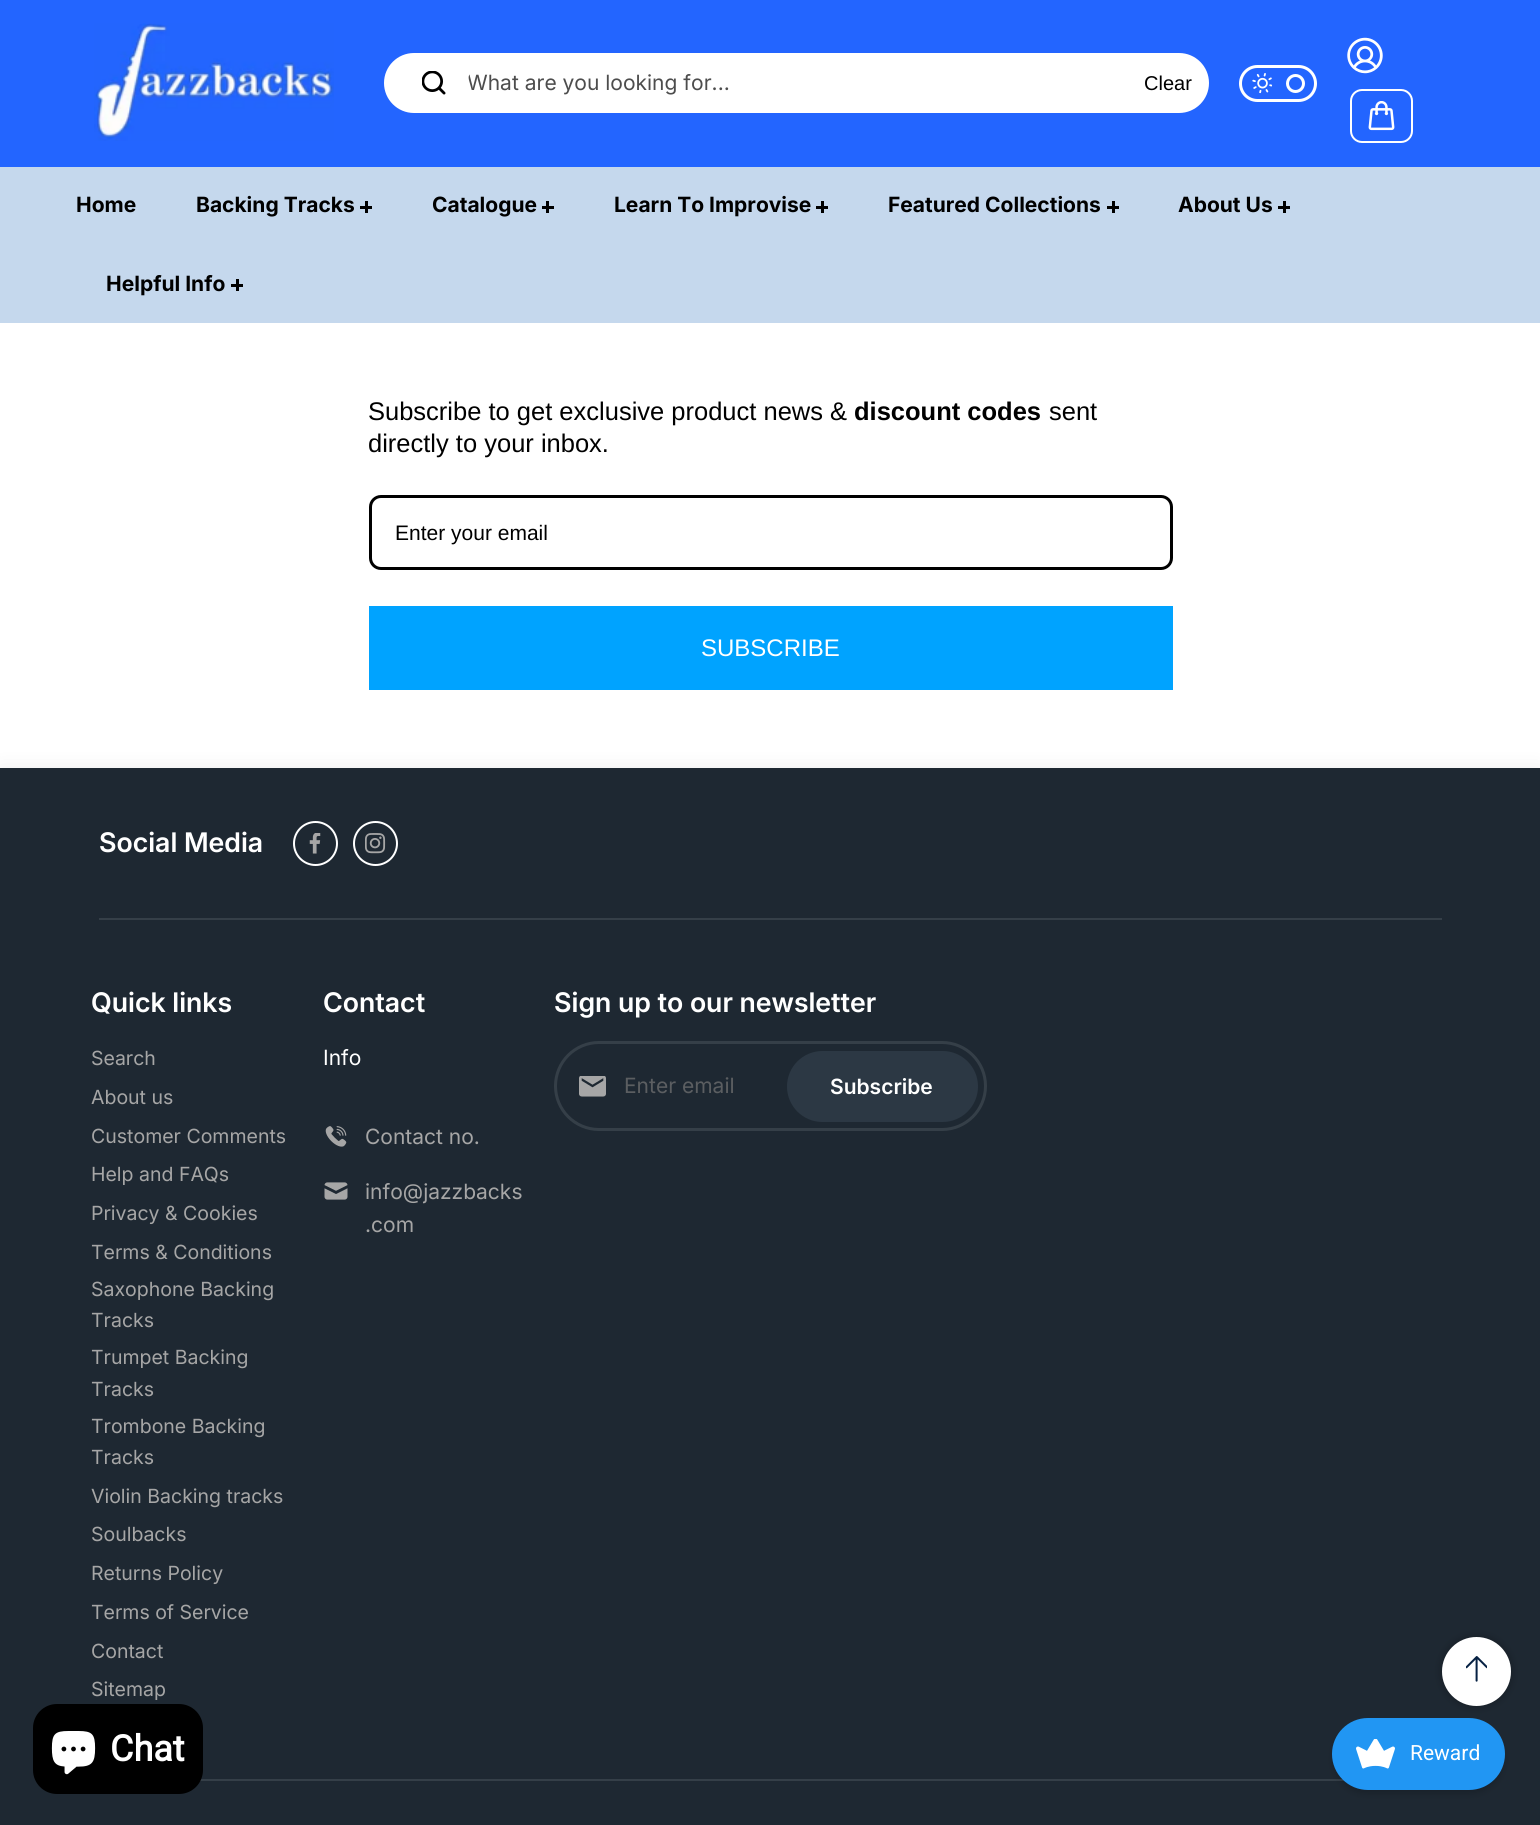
#include <cairo.h>
#include <math.h>
#include <stddef.h>


static void round_rect(cairo_t *cr, double x, double y, double w, double h, double r) {
    cairo_new_sub_path(cr);
    cairo_arc(cr, x + w - r, y + h - r, r, 0, M_PI / 2);
    cairo_arc(cr, x + r, y + h - r, r, M_PI / 2, M_PI);
    cairo_arc(cr, x + r, y + r, r, M_PI, 1.5 * M_PI);
    cairo_arc(cr, x + w - r, y + r, r, 1.5 * M_PI, 2 * M_PI);
    cairo_close_path(cr);
}

static void shadow(cairo_t *cr, double x, double y, double w, double h, double r, double blur, double alpha) {
    cairo_push_group_with_content(cr, CAIRO_CONTENT_ALPHA);
    cairo_set_operator(cr, CAIRO_OPERATOR_SOURCE);
    for (int i = 15; i >= -15 && fmin(w, h) + blur * i / 3 > 0; i -= 2) {
        double e = blur * i / 6;
        cairo_set_source_rgba(cr, 0, 0, 0, alpha * erfc((i - 1) / 8.5) / 2);
        round_rect(cr, x - e, y - e, w + 2 * e, h + 2 * e, fmax(0, fmin(r + e + blur * .6, fmin(w, h) / 2 + e)));
        cairo_fill(cr);
    }
    cairo_pattern_t *soft = cairo_pop_group(cr);
    cairo_mask(cr, soft);
    cairo_pattern_destroy(soft);
}

static void picture(cairo_t *cr, const char *path, double x, double y, double w, double h) {
    cairo_surface_t *image = cairo_image_surface_create_from_png(path);
    cairo_save(cr);
    cairo_set_source_surface(cr, image, x, y);
    cairo_rectangle(cr, x, y, w, h);
    cairo_fill(cr);
    cairo_restore(cr);
    cairo_surface_destroy(image);
}

int main(void) {
    cairo_surface_t *surface = cairo_image_surface_create(CAIRO_FORMAT_RGB24, 1540, 1825);
    cairo_t *cr = cairo_create(surface);
    cairo_font_options_t *options = cairo_font_options_create();
    cairo_font_options_set_hint_metrics(options, CAIRO_HINT_METRICS_OFF);
    cairo_font_options_set_hint_style(options, CAIRO_HINT_STYLE_NONE);
    cairo_set_font_options(cr, options);
    cairo_set_miter_limit(cr, 4);
    cairo_set_source_rgb(cr, 1, 1, 1);
    cairo_paint(cr);
    cairo_set_source_rgb(cr, 0.137, 0.396, 1);
    cairo_rectangle(cr, 0, 0, 1540, 167);
    cairo_fill(cr);
    picture(cr, "img1.png", 94, 23, 240, 118);
    cairo_set_source_rgb(cr, 1, 1, 1);
    round_rect(cr, 384, 53, 825, 60, 30);
    cairo_fill(cr);
    picture(cr, "img2.png", 422, 71, 24, 24);
    cairo_save(cr);
    round_rect(cr, 468, 53, 654, 60, 30);
    cairo_clip(cr);
    cairo_select_font_face(cr, "Inter", CAIRO_FONT_SLANT_NORMAL, CAIRO_FONT_WEIGHT_NORMAL);
    cairo_set_font_size(cr, 21);
    cairo_set_source_rgb(cr, 0.302, 0.302, 0.302);
    cairo_move_to(cr, 467, 90);
    cairo_show_text(cr, "What are you looking for...");
    cairo_restore(cr);
    cairo_select_font_face(cr, "Liberation Sans", CAIRO_FONT_SLANT_NORMAL, CAIRO_FONT_WEIGHT_NORMAL);
    cairo_set_font_size(cr, 20);
    cairo_set_source_rgb(cr, 0, 0, 0);
    cairo_move_to(cr, 1144, 90);
    cairo_show_text(cr, "Clear");
    round_rect(cr, 1240.5, 66.5, 75, 34, 17);
    cairo_set_source_rgb(cr, 1, 1, 1);
    cairo_set_line_width(cr, 3);
    cairo_stroke(cr);
    picture(cr, "img3.png", 1252, 73, 21, 21);
    cairo_arc(cr, 1295.5, 83.5, 8, 0, 2 * M_PI);
    cairo_stroke(cr);
    picture(cr, "img4.png", 1347, 37, 36, 37);
    round_rect(cr, 1351, 90, 61, 52, 11);
    cairo_set_line_width(cr, 2);
    cairo_stroke(cr);
    picture(cr, "img5.png", 1368, 101, 27, 30);
    cairo_set_source_rgb(cr, 0.773, 0.847, 0.929);
    cairo_rectangle(cr, 0, 167, 1540, 156);
    cairo_fill(cr);
    cairo_select_font_face(cr, "Inter", CAIRO_FONT_SLANT_NORMAL, CAIRO_FONT_WEIGHT_BOLD);
    cairo_set_font_size(cr, 21);
    cairo_set_source_rgb(cr, 0, 0, 0);
    cairo_move_to(cr, 76, 212);
    cairo_show_text(cr, "Home");
    cairo_move_to(cr, 196, 212);
    cairo_show_text(cr, "Backing Tracks");
    cairo_rectangle(cr, 360, 206, 12, 3);
    cairo_fill(cr);
    cairo_rectangle(cr, 365, 201, 3, 12);
    cairo_fill(cr);
    cairo_move_to(cr, 432, 212);
    cairo_show_text(cr, "Catalogue");
    cairo_rectangle(cr, 542, 206, 12, 3);
    cairo_fill(cr);
    cairo_rectangle(cr, 546, 201, 3, 12);
    cairo_fill(cr);
    cairo_move_to(cr, 614, 212);
    cairo_show_text(cr, "Learn To Improvise");
    cairo_rectangle(cr, 816, 206, 12, 3);
    cairo_fill(cr);
    cairo_rectangle(cr, 821, 201, 3, 12);
    cairo_fill(cr);
    cairo_move_to(cr, 888, 212);
    cairo_show_text(cr, "Featured Collections");
    cairo_rectangle(cr, 1107, 206, 12, 3);
    cairo_fill(cr);
    cairo_rectangle(cr, 1112, 201, 3, 12);
    cairo_fill(cr);
    cairo_move_to(cr, 1178, 212);
    cairo_show_text(cr, "About Us");
    cairo_rectangle(cr, 1278, 206, 12, 3);
    cairo_fill(cr);
    cairo_rectangle(cr, 1283, 201, 3, 12);
    cairo_fill(cr);
    cairo_move_to(cr, 106, 291);
    cairo_show_text(cr, "Helpful Info");
    cairo_rectangle(cr, 231, 284, 12, 3);
    cairo_fill(cr);
    cairo_rectangle(cr, 236, 279, 3, 12);
    cairo_fill(cr);
    cairo_select_font_face(cr, "Liberation Sans", CAIRO_FONT_SLANT_NORMAL, CAIRO_FONT_WEIGHT_NORMAL);
    cairo_set_font_size(cr, 25.5);
    cairo_move_to(cr, 368, 420);
    cairo_show_text(cr, "Subscribe to get exclusive product news &");
    cairo_select_font_face(cr, "Liberation Sans", CAIRO_FONT_SLANT_NORMAL, CAIRO_FONT_WEIGHT_BOLD);
    cairo_move_to(cr, 854, 420);
    cairo_show_text(cr, "discount codes");
    cairo_select_font_face(cr, "Liberation Sans", CAIRO_FONT_SLANT_NORMAL, CAIRO_FONT_WEIGHT_NORMAL);
    cairo_move_to(cr, 1049, 420);
    cairo_show_text(cr, "sent");
    cairo_move_to(cr, 368, 452);
    cairo_show_text(cr, "directly to your inbox.");
    round_rect(cr, 370.5, 496.5, 801, 72, 10.5);
    cairo_set_line_width(cr, 3);
    cairo_stroke(cr);
    cairo_set_font_size(cr, 21);
    cairo_move_to(cr, 395, 540);
    cairo_show_text(cr, "Enter your email");
    cairo_set_source_rgb(cr, 0, 0.639, 1);
    cairo_rectangle(cr, 369, 606, 804, 84);
    cairo_fill(cr);
    cairo_set_font_size(cr, 24);
    cairo_set_source_rgb(cr, 1, 1, 1);
    cairo_move_to(cr, 701, 656);
    cairo_show_text(cr, "SUBSCRIBE");
    cairo_set_source_rgb(cr, 0, 0, 0);
    shadow(cr, 0, 768, 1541, 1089, 0, 10.5, 0.07);
    cairo_set_source_rgb(cr, 0.118, 0.157, 0.196);
    cairo_rectangle(cr, 0, 768, 1540, 1057);
    cairo_fill(cr);
    cairo_set_source_rgb(cr, 0.208, 0.247, 0.282);
    cairo_rectangle(cr, 99, 918, 1343, 2);
    cairo_fill(cr);
    cairo_select_font_face(cr, "Inter SemiBold", CAIRO_FONT_SLANT_NORMAL, CAIRO_FONT_WEIGHT_NORMAL);
    cairo_set_font_size(cr, 27);
    cairo_set_source_rgb(cr, 1, 1, 1);
    cairo_move_to(cr, 99, 852);
    cairo_show_text(cr, "Social Media");
    cairo_new_path(cr);
    cairo_arc(cr, 315.5, 843.5, 21.5, 0, 2 * M_PI);
    cairo_set_line_width(cr, 2);
    cairo_stroke(cr);
    picture(cr, "img6.png", 309, 833, 12, 21);
    cairo_arc(cr, 375.5, 843.5, 21.5, 0, 2 * M_PI);
    cairo_stroke(cr);
    picture(cr, "img7.png", 365, 833, 21, 21);
    cairo_move_to(cr, 91, 1012);
    cairo_show_text(cr, "Quick links");
    cairo_select_font_face(cr, "Inter", CAIRO_FONT_SLANT_NORMAL, CAIRO_FONT_WEIGHT_NORMAL);
    cairo_set_font_size(cr, 19.5);
    cairo_set_source_rgb(cr, 0.651, 0.651, 0.651);
    cairo_move_to(cr, 91, 1065);
    cairo_show_text(cr, "Search");
    cairo_move_to(cr, 91, 1104);
    cairo_show_text(cr, "About us");
    cairo_move_to(cr, 91, 1143);
    cairo_show_text(cr, "Customer Comments");
    cairo_move_to(cr, 91, 1181);
    cairo_show_text(cr, "Help and FAQs");
    cairo_move_to(cr, 91, 1220);
    cairo_show_text(cr, "Privacy & Cookies");
    cairo_move_to(cr, 91, 1259);
    cairo_show_text(cr, "Terms & Conditions");
    cairo_move_to(cr, 91, 1296);
    cairo_show_text(cr, "Saxophone Backing");
    cairo_move_to(cr, 91, 1327);
    cairo_show_text(cr, "Tracks");
    cairo_move_to(cr, 91, 1364);
    cairo_show_text(cr, "Trumpet Backing");
    cairo_move_to(cr, 91, 1396);
    cairo_show_text(cr, "Tracks");
    cairo_move_to(cr, 91, 1433);
    cairo_show_text(cr, "Trombone Backing");
    cairo_move_to(cr, 91, 1464);
    cairo_show_text(cr, "Tracks");
    cairo_move_to(cr, 91, 1503);
    cairo_show_text(cr, "Violin Backing tracks");
    cairo_move_to(cr, 91, 1541);
    cairo_show_text(cr, "Soulbacks");
    cairo_move_to(cr, 91, 1580);
    cairo_show_text(cr, "Returns Policy");
    cairo_move_to(cr, 91, 1619);
    cairo_show_text(cr, "Terms of Service");
    cairo_move_to(cr, 91, 1658);
    cairo_show_text(cr, "Contact");
    cairo_move_to(cr, 91, 1696);
    cairo_show_text(cr, "Sitemap");
    cairo_select_font_face(cr, "Inter SemiBold", CAIRO_FONT_SLANT_NORMAL, CAIRO_FONT_WEIGHT_NORMAL);
    cairo_set_font_size(cr, 27);
    cairo_set_source_rgb(cr, 1, 1, 1);
    cairo_move_to(cr, 323, 1012);
    cairo_show_text(cr, "Contact");
    cairo_select_font_face(cr, "Inter", CAIRO_FONT_SLANT_NORMAL, CAIRO_FONT_WEIGHT_NORMAL);
    cairo_set_font_size(cr, 21);
    cairo_move_to(cr, 323, 1065);
    cairo_show_text(cr, "Info");
    picture(cr, "img8.png", 325, 1126, 22, 21);
    cairo_set_source_rgb(cr, 0.651, 0.651, 0.651);
    cairo_move_to(cr, 365, 1144);
    cairo_show_text(cr, "Contact no.");
    picture(cr, "img9.png", 324, 1182, 24, 18);
    cairo_move_to(cr, 365, 1199);
    cairo_show_text(cr, "info@jazzbacks");
    cairo_move_to(cr, 365, 1232);
    cairo_show_text(cr, ".com");
    cairo_select_font_face(cr, "Inter SemiBold", CAIRO_FONT_SLANT_NORMAL, CAIRO_FONT_WEIGHT_NORMAL);
    cairo_set_font_size(cr, 27);
    cairo_set_source_rgb(cr, 1, 1, 1);
    cairo_move_to(cr, 554, 1012);
    cairo_show_text(cr, "Sign up to our newsletter");
    round_rect(cr, 555.5, 1042.5, 430, 87, 43.5);
    cairo_set_source_rgb(cr, 0.208, 0.247, 0.282);
    cairo_set_line_width(cr, 3);
    cairo_stroke(cr);
    picture(cr, "img10.png", 579, 1076, 27, 21);
    cairo_select_font_face(cr, "Inter", CAIRO_FONT_SLANT_NORMAL, CAIRO_FONT_WEIGHT_NORMAL);
    cairo_set_font_size(cr, 21);
    cairo_set_source_rgb(cr, 0.357, 0.369, 0.38);
    cairo_move_to(cr, 624, 1093);
    cairo_show_text(cr, "Enter email");
    cairo_set_source_rgb(cr, 0.173, 0.22, 0.267);
    round_rect(cr, 786, 1050, 193, 73, 36.5);
    cairo_fill_preserve(cr);
    cairo_set_source_rgb(cr, 0.118, 0.157, 0.196);
    cairo_set_line_width(cr, 2);
    cairo_stroke(cr);
    cairo_select_font_face(cr, "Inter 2 SemiBold", CAIRO_FONT_SLANT_NORMAL, CAIRO_FONT_WEIGHT_NORMAL);
    cairo_set_source_rgb(cr, 1, 1, 1);
    cairo_move_to(cr, 830, 1094);
    cairo_show_text(cr, "Subscribe");
    cairo_set_source_rgb(cr, 0.208, 0.247, 0.282);
    cairo_rectangle(cr, 200, 1779, 1145, 2);
    cairo_fill(cr);
    cairo_set_source_rgb(cr, 0, 0, 0);
    shadow(cr, 1442, 1637, 69, 69, 34.5, 4.5, 0.3);
    cairo_set_source_rgb(cr, 1, 1, 1);
    cairo_arc(cr, 1476.5, 1671.5, 34.5, 0, 2 * M_PI);
    cairo_fill(cr);
    picture(cr, "img11.png", 1466, 1656, 21, 26);
    cairo_set_source_rgb(cr, 0, 0, 0);
    round_rect(cr, 33, 1704, 170, 90, 24);
    cairo_fill(cr);
    picture(cr, "img12.png", 51, 1731, 45, 44);
    cairo_select_font_face(cr, "Roboto", CAIRO_FONT_SLANT_NORMAL, CAIRO_FONT_WEIGHT_BOLD);
    cairo_set_font_size(cr, 36);
    cairo_set_source_rgb(cr, 1, 1, 1);
    cairo_move_to(cr, 110, 1761);
    cairo_show_text(cr, "Chat");
    cairo_set_source_rgb(cr, 0, 0, 0);
    shadow(cr, 1334, 1724, 169, 69, 34.5, 4, 0.2);
    cairo_set_source_rgb(cr, 0.129, 0.588, 0.953);
    round_rect(cr, 1332, 1718, 173, 72, 36);
    cairo_fill(cr);
    picture(cr, "img13.png", 1356, 1739, 39, 30);
    cairo_select_font_face(cr, "Roboto", CAIRO_FONT_SLANT_NORMAL, CAIRO_FONT_WEIGHT_NORMAL);
    cairo_set_font_size(cr, 21);
    cairo_set_source_rgb(cr, 1, 1, 1);
    cairo_move_to(cr, 1410, 1760);
    cairo_show_text(cr, "Reward");
    cairo_surface_write_to_png(surface, "page.png");
    cairo_font_options_destroy(options);
    cairo_destroy(cr);
    cairo_surface_destroy(surface);
    return 0;
}
